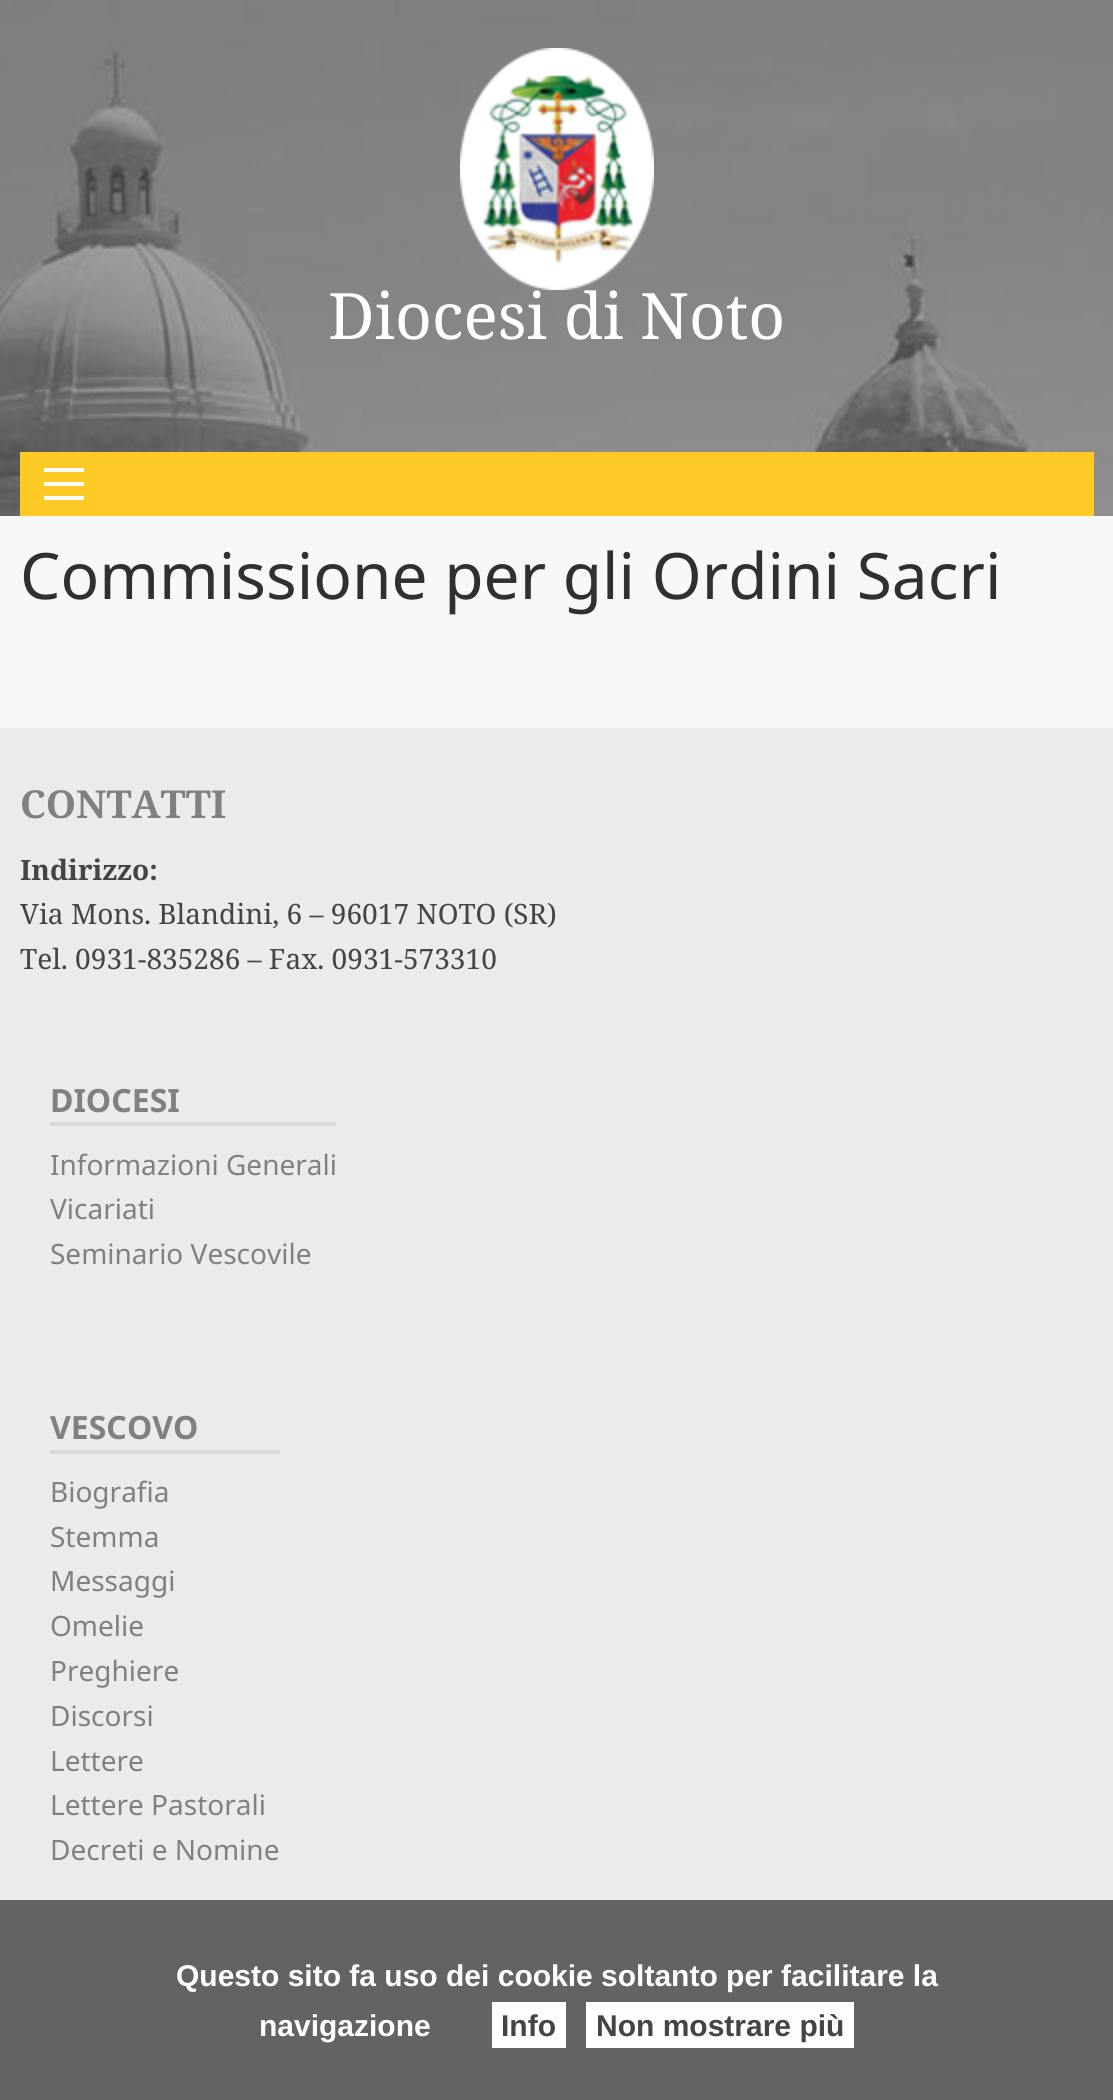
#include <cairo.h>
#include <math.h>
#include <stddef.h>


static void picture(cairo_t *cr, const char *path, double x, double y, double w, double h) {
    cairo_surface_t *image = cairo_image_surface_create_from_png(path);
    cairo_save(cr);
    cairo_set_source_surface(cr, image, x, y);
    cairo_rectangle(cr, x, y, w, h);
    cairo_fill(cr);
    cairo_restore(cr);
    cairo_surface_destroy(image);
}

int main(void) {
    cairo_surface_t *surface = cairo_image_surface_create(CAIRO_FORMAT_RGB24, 1113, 2100);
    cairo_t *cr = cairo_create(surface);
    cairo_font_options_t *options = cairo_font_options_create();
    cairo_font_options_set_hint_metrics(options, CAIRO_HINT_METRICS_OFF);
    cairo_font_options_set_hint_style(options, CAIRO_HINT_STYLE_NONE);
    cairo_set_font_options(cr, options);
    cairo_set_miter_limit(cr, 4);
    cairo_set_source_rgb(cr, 1, 1, 1);
    cairo_paint(cr);
    picture(cr, "img1.png", 0, 0, 1113, 516);
    picture(cr, "img2.png", 460, 48, 194, 242);
    cairo_select_font_face(cr, "Noto Serif", CAIRO_FONT_SLANT_NORMAL, CAIRO_FONT_WEIGHT_NORMAL);
    cairo_set_font_size(cr, 64);
    cairo_set_source_rgb(cr, 1, 1, 1);
    cairo_move_to(cr, 328, 339);
    cairo_show_text(cr, "Diocesi di Noto");
    cairo_set_source_rgb(cr, 1, 0.792, 0.149);
    cairo_rectangle(cr, 20, 452, 1074, 64);
    cairo_fill(cr);
    cairo_set_source_rgb(cr, 0.996, 0.996, 0.996);
    cairo_rectangle(cr, 44, 496, 40, 4);
    cairo_fill(cr);
    cairo_rectangle(cr, 44, 482, 40, 4);
    cairo_fill(cr);
    cairo_rectangle(cr, 44, 468, 40, 4);
    cairo_fill(cr);
    cairo_set_source_rgb(cr, 0.969, 0.969, 0.969);
    cairo_rectangle(cr, 0, 516, 1113, 212);
    cairo_fill(cr);
    cairo_select_font_face(cr, "Noto Sans", CAIRO_FONT_SLANT_NORMAL, CAIRO_FONT_WEIGHT_NORMAL);
    cairo_set_source_rgb(cr, 0.188, 0.188, 0.188);
    cairo_move_to(cr, 20, 599);
    cairo_show_text(cr, "Commissione per gli Ordini Sacri");
    cairo_set_source_rgb(cr, 0.918, 0.918, 0.918);
    cairo_rectangle(cr, 0, 730, 1113, 1370);
    cairo_fill(cr);
    cairo_set_source_rgb(cr, 0.929, 0.929, 0.929);
    cairo_rectangle(cr, 0, 728, 1113, 2);
    cairo_fill(cr);
    cairo_select_font_face(cr, "Noto Serif", CAIRO_FONT_SLANT_NORMAL, CAIRO_FONT_WEIGHT_BOLD);
    cairo_set_font_size(cr, 38.5);
    cairo_set_source_rgb(cr, 0.502, 0.502, 0.502);
    cairo_move_to(cr, 20, 818);
    cairo_show_text(cr, "CONTATTI");
    cairo_set_font_size(cr, 28);
    cairo_set_source_rgb(cr, 0.267, 0.267, 0.267);
    cairo_move_to(cr, 20, 880);
    cairo_show_text(cr, "Indirizzo:");
    cairo_select_font_face(cr, "Noto Serif", CAIRO_FONT_SLANT_NORMAL, CAIRO_FONT_WEIGHT_NORMAL);
    cairo_move_to(cr, 20, 924);
    cairo_show_text(cr, "Via Mons. Blandini, 6 – 96017 NOTO (SR)");
    cairo_move_to(cr, 20, 969);
    cairo_show_text(cr, "Tel. 0931-835286 – Fax. 0931-573310");
    cairo_set_source_rgb(cr, 0.847, 0.847, 0.847);
    cairo_rectangle(cr, 50, 1122, 286, 4);
    cairo_fill(cr);
    cairo_select_font_face(cr, "Noto Sans", CAIRO_FONT_SLANT_NORMAL, CAIRO_FONT_WEIGHT_BOLD);
    cairo_set_font_size(cr, 32);
    cairo_set_source_rgb(cr, 0.502, 0.502, 0.502);
    cairo_move_to(cr, 50, 1112);
    cairo_show_text(cr, "DIOCESI");
    cairo_select_font_face(cr, "Noto Sans", CAIRO_FONT_SLANT_NORMAL, CAIRO_FONT_WEIGHT_NORMAL);
    cairo_set_font_size(cr, 28);
    cairo_move_to(cr, 50, 1175);
    cairo_show_text(cr, "Informazioni Generali");
    cairo_move_to(cr, 50, 1219);
    cairo_show_text(cr, "Vicariati");
    cairo_move_to(cr, 50, 1264);
    cairo_show_text(cr, "Seminario Vescovile");
    cairo_set_source_rgb(cr, 0.847, 0.847, 0.847);
    cairo_rectangle(cr, 50, 1450, 230, 4);
    cairo_fill(cr);
    cairo_select_font_face(cr, "Noto Sans", CAIRO_FONT_SLANT_NORMAL, CAIRO_FONT_WEIGHT_BOLD);
    cairo_set_font_size(cr, 32);
    cairo_set_source_rgb(cr, 0.502, 0.502, 0.502);
    cairo_move_to(cr, 50, 1439);
    cairo_show_text(cr, "VESCOVO");
    cairo_select_font_face(cr, "Noto Sans", CAIRO_FONT_SLANT_NORMAL, CAIRO_FONT_WEIGHT_NORMAL);
    cairo_set_font_size(cr, 28);
    cairo_move_to(cr, 50, 1502);
    cairo_show_text(cr, "Biografia");
    cairo_move_to(cr, 50, 1547);
    cairo_show_text(cr, "Stemma");
    cairo_move_to(cr, 50, 1591);
    cairo_show_text(cr, "Messaggi");
    cairo_move_to(cr, 50, 1636);
    cairo_show_text(cr, "Omelie");
    cairo_move_to(cr, 50, 1681);
    cairo_show_text(cr, "Preghiere");
    cairo_move_to(cr, 50, 1726);
    cairo_show_text(cr, "Discorsi");
    cairo_move_to(cr, 50, 1771);
    cairo_show_text(cr, "Lettere");
    cairo_move_to(cr, 50, 1815);
    cairo_show_text(cr, "Lettere Pastorali");
    cairo_move_to(cr, 50, 1860);
    cairo_show_text(cr, "Decreti e Nomine");
    cairo_set_source_rgb(cr, 0.847, 0.847, 0.847);
    cairo_rectangle(cr, 50, 2046, 216, 4);
    cairo_fill(cr);
    cairo_set_source_rgba(cr, 0.333, 0.333, 0.333, 0.9);
    cairo_rectangle(cr, 0, 1900, 1113, 200);
    cairo_fill(cr);
    cairo_select_font_face(cr, "Liberation Sans", CAIRO_FONT_SLANT_NORMAL, CAIRO_FONT_WEIGHT_BOLD);
    cairo_set_font_size(cr, 30);
    cairo_set_source_rgb(cr, 1, 1, 1);
    cairo_move_to(cr, 176, 1986);
    cairo_show_text(cr, "Questo sito fa uso dei cookie soltanto per facilitare la");
    cairo_move_to(cr, 259, 2036);
    cairo_show_text(cr, "navigazione");
    cairo_set_source_rgb(cr, 0.992, 0.992, 0.992);
    cairo_rectangle(cr, 492, 2002, 74, 46);
    cairo_fill(cr);
    cairo_set_source_rgb(cr, 0.267, 0.267, 0.267);
    cairo_move_to(cr, 501, 2036);
    cairo_show_text(cr, "Info");
    cairo_set_source_rgb(cr, 0.992, 0.992, 0.992);
    cairo_rectangle(cr, 586, 2002, 268, 46);
    cairo_fill(cr);
    cairo_set_source_rgb(cr, 0.267, 0.267, 0.267);
    cairo_move_to(cr, 596, 2036);
    cairo_show_text(cr, "Non mostrare più");
    cairo_surface_write_to_png(surface, "page.png");
    cairo_font_options_destroy(options);
    cairo_destroy(cr);
    cairo_surface_destroy(surface);
    return 0;
}
